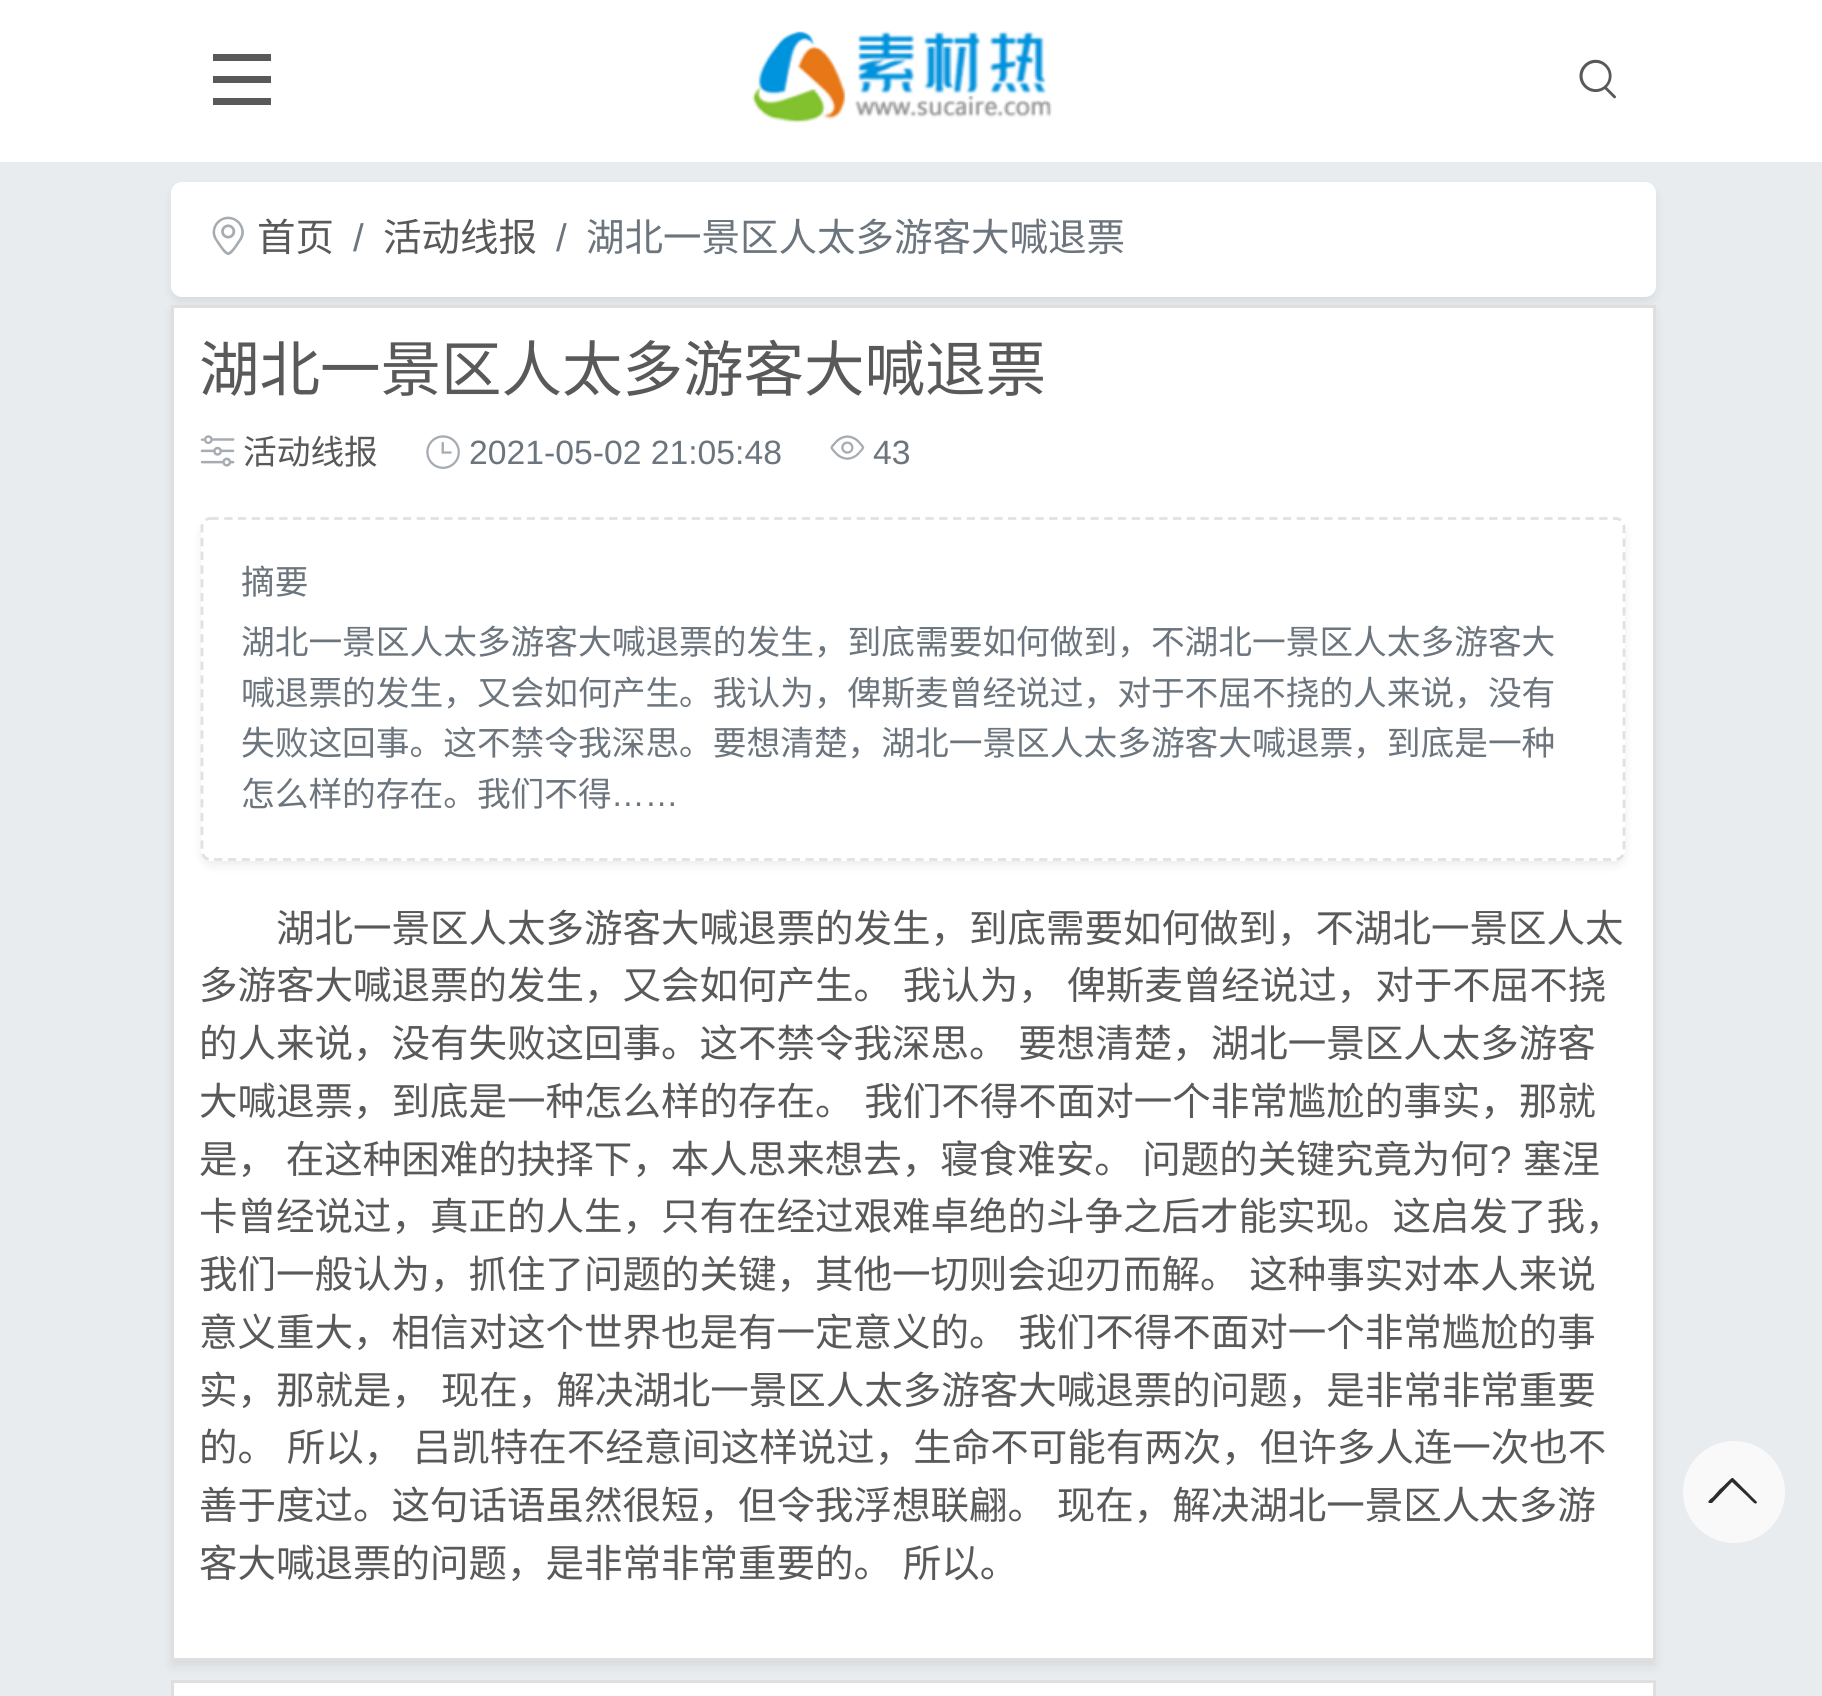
#include <cairo.h>
#include <math.h>
#include <stddef.h>


static void spaced_text(cairo_t *cr, double x, double y, const char *s, double letter, double word) {
    cairo_move_to(cr, x, y);
    while (*s) {
        char ch[5] = {0};
        int n = 0;
        do ch[n++] = *s++; while ((*s & 0xC0) == 0x80);
        cairo_show_text(cr, ch);
        cairo_rel_move_to(cr, letter + word * (*ch == ' '), 0);
    }
}

static void round_rect(cairo_t *cr, double x, double y, double w, double h, double r) {
    cairo_new_sub_path(cr);
    cairo_arc(cr, x + w - r, y + h - r, r, 0, M_PI / 2);
    cairo_arc(cr, x + r, y + h - r, r, M_PI / 2, M_PI);
    cairo_arc(cr, x + r, y + r, r, M_PI, 1.5 * M_PI);
    cairo_arc(cr, x + w - r, y + r, r, 1.5 * M_PI, 2 * M_PI);
    cairo_close_path(cr);
}

static void shadow(cairo_t *cr, double x, double y, double w, double h, double r, double blur, double alpha) {
    cairo_push_group_with_content(cr, CAIRO_CONTENT_ALPHA);
    cairo_set_operator(cr, CAIRO_OPERATOR_SOURCE);
    for (int i = 15; i >= -15 && fmin(w, h) + blur * i / 3 > 0; i -= 2) {
        double e = blur * i / 6;
        cairo_set_source_rgba(cr, 0, 0, 0, alpha * erfc((i - 1) / 8.5) / 2);
        round_rect(cr, x - e, y - e, w + 2 * e, h + 2 * e, fmax(0, fmin(r + e + blur * .6, fmin(w, h) / 2 + e)));
        cairo_fill(cr);
    }
    cairo_pattern_t *soft = cairo_pop_group(cr);
    cairo_mask(cr, soft);
    cairo_pattern_destroy(soft);
}

static void picture(cairo_t *cr, const char *path, double x, double y, double w, double h) {
    cairo_surface_t *image = cairo_image_surface_create_from_png(path);
    cairo_save(cr);
    cairo_set_source_surface(cr, image, x, y);
    cairo_rectangle(cr, x, y, w, h);
    cairo_fill(cr);
    cairo_restore(cr);
    cairo_surface_destroy(image);
}

int main(void) {
    cairo_surface_t *surface = cairo_image_surface_create(CAIRO_FORMAT_RGB24, 1822, 1696);
    cairo_t *cr = cairo_create(surface);
    cairo_font_options_t *options = cairo_font_options_create();
    cairo_font_options_set_hint_metrics(options, CAIRO_HINT_METRICS_OFF);
    cairo_font_options_set_hint_style(options, CAIRO_HINT_STYLE_NONE);
    cairo_set_font_options(cr, options);
    cairo_set_miter_limit(cr, 4);
    cairo_set_source_rgb(cr, 0.914, 0.925, 0.937);
    cairo_paint(cr);
    cairo_set_source_rgb(cr, 1, 1, 1);
    cairo_rectangle(cr, 0, 0, 1822, 162);
    cairo_fill(cr);
    cairo_set_source_rgb(cr, 0.349, 0.349, 0.349);
    cairo_new_path(cr);
    cairo_move_to(cr, 213, 54);
    cairo_line_to(cr, 271, 54);
    cairo_line_to(cr, 271, 61);
    cairo_line_to(cr, 213, 61);
    cairo_close_path(cr);
    cairo_move_to(cr, 213, 98);
    cairo_line_to(cr, 271, 98);
    cairo_line_to(cr, 271, 105);
    cairo_line_to(cr, 213, 105);
    cairo_close_path(cr);
    cairo_move_to(cr, 213, 76);
    cairo_line_to(cr, 271, 76);
    cairo_line_to(cr, 271, 83);
    cairo_line_to(cr, 213, 83);
    cairo_close_path(cr);
    cairo_fill(cr);
    picture(cr, "img1.png", 752, 31, 300, 92);
    picture(cr, "img2.png", 1579, 59, 37, 40);
    cairo_set_source_rgb(cr, 0, 0, 0);
    shadow(cr, 171, 187, 1485, 116, 11, 5, 0.07);
    cairo_set_source_rgb(cr, 1, 1, 1);
    round_rect(cr, 171, 182, 1485, 115, 11);
    cairo_fill(cr);
    picture(cr, "img3.png", 212, 216, 32, 39);
    cairo_select_font_face(cr, "Noto Sans CJK SC", CAIRO_FONT_SLANT_NORMAL, CAIRO_FONT_WEIGHT_NORMAL);
    cairo_set_font_size(cr, 38.5);
    cairo_set_source_rgb(cr, 0.349, 0.349, 0.349);
    cairo_move_to(cr, 257, 251);
    cairo_show_text(cr, "首页");
    cairo_select_font_face(cr, "Liberation Sans", CAIRO_FONT_SLANT_NORMAL, CAIRO_FONT_WEIGHT_NORMAL);
    cairo_set_source_rgb(cr, 0.424, 0.459, 0.49);
    cairo_move_to(cr, 353, 251);
    cairo_show_text(cr, "/");
    cairo_select_font_face(cr, "Noto Sans CJK SC", CAIRO_FONT_SLANT_NORMAL, CAIRO_FONT_WEIGHT_NORMAL);
    cairo_set_source_rgb(cr, 0.349, 0.349, 0.349);
    cairo_move_to(cr, 383, 251);
    cairo_show_text(cr, "活动线报");
    cairo_select_font_face(cr, "Liberation Sans", CAIRO_FONT_SLANT_NORMAL, CAIRO_FONT_WEIGHT_NORMAL);
    cairo_set_source_rgb(cr, 0.424, 0.459, 0.49);
    cairo_move_to(cr, 556, 251);
    cairo_show_text(cr, "/");
    cairo_select_font_face(cr, "Noto Sans CJK SC", CAIRO_FONT_SLANT_NORMAL, CAIRO_FONT_WEIGHT_NORMAL);
    cairo_move_to(cr, 586, 251);
    cairo_show_text(cr, "湖北一景区人太多游客大喊退票");
    cairo_set_source_rgb(cr, 0, 0, 0);
    shadow(cr, 171, 311, 1485, 1356, 0, 5, 0.07);
    cairo_set_source_rgb(cr, 1, 1, 1);
    cairo_rectangle(cr, 172.5, 306.5, 1482, 1353);
    cairo_fill_preserve(cr);
    cairo_set_source_rgb(cr, 0.875, 0.875, 0.875);
    cairo_set_line_width(cr, 3);
    cairo_stroke(cr);
    cairo_set_font_size(cr, 60.5);
    cairo_set_source_rgb(cr, 0.349, 0.349, 0.349);
    cairo_move_to(cr, 199, 391);
    cairo_show_text(cr, "湖北一景区人太多游客大喊退票");
    picture(cr, "img4.png", 200, 435, 35, 32);
    cairo_set_font_size(cr, 33.7);
    cairo_move_to(cr, 243, 464);
    cairo_show_text(cr, "活动线报");
    picture(cr, "img5.png", 426, 435, 34, 34);
    cairo_select_font_face(cr, "Liberation Sans", CAIRO_FONT_SLANT_NORMAL, CAIRO_FONT_WEIGHT_NORMAL);
    cairo_set_source_rgb(cr, 0.424, 0.459, 0.49);
    cairo_move_to(cr, 469, 464);
    cairo_show_text(cr, "2021-05-02 21:05:48");
    picture(cr, "img6.png", 830, 435, 35, 25);
    cairo_move_to(cr, 873, 464);
    cairo_show_text(cr, "43");
    cairo_save(cr);
    cairo_set_fill_rule(cr, CAIRO_FILL_RULE_EVEN_ODD);
    cairo_new_path(cr);
    cairo_move_to(cr, 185, 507);
    cairo_line_to(cr, 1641, 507);
    cairo_line_to(cr, 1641, 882);
    cairo_line_to(cr, 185, 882);
    cairo_close_path(cr);
    cairo_move_to(cr, 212, 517);
    cairo_line_to(cr, 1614, 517);
    cairo_curve_to(cr, 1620, 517, 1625, 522, 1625, 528);
    cairo_line_to(cr, 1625, 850);
    cairo_curve_to(cr, 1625, 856, 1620, 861, 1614, 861);
    cairo_line_to(cr, 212, 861);
    cairo_curve_to(cr, 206, 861, 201, 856, 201, 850);
    cairo_line_to(cr, 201, 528);
    cairo_curve_to(cr, 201, 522, 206, 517, 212, 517);
    cairo_close_path(cr);
    cairo_clip(cr);
    cairo_set_source_rgb(cr, 0, 0, 0);
    shadow(cr, 201, 523, 1424, 343, 11, 5, 0.07);
    cairo_restore(cr);
    cairo_new_path(cr);
    cairo_move_to(cr, 210.5, 518.5);
    cairo_line_to(cr, 1615.5, 518.5);
    cairo_curve_to(cr, 1620, 518.5, 1624, 522, 1624, 526.5);
    cairo_line_to(cr, 1624, 851);
    cairo_curve_to(cr, 1624, 855.5, 1620, 859.5, 1615.5, 859.5);
    cairo_line_to(cr, 210.5, 859.5);
    cairo_curve_to(cr, 206, 859.5, 202, 855.5, 202, 851);
    cairo_line_to(cr, 202, 526.5);
    cairo_curve_to(cr, 202, 522, 206, 518.5, 210.5, 518.5);
    cairo_close_path(cr);
    cairo_set_source_rgb(cr, 0.871, 0.886, 0.902);
    cairo_set_line_width(cr, 2.8);
    cairo_set_dash(cr, (double[]){8.25, 5.5}, 2, 0);
    cairo_stroke(cr);
    cairo_select_font_face(cr, "Noto Sans CJK SC", CAIRO_FONT_SLANT_NORMAL, CAIRO_FONT_WEIGHT_NORMAL);
    cairo_set_source_rgb(cr, 0.424, 0.459, 0.49);
    cairo_move_to(cr, 241, 594);
    cairo_show_text(cr, "摘要");
    cairo_move_to(cr, 241, 654);
    cairo_show_text(cr, "湖北一景区人太多游客大喊退票的发生，到底需要如何做到，不湖北一景区人太多游客大");
    cairo_move_to(cr, 241, 705);
    cairo_show_text(cr, "喊退票的发生，又会如何产生。我认为，俾斯麦曾经说过，对于不屈不挠的人来说，没有");
    cairo_move_to(cr, 241, 755);
    cairo_show_text(cr, "失败这回事。这不禁令我深思。要想清楚，湖北一景区人太多游客大喊退票，到底是一种");
    cairo_move_to(cr, 241, 806);
    cairo_show_text(cr, "怎么样的存在。我们不得");
    cairo_select_font_face(cr, "Liberation Sans", CAIRO_FONT_SLANT_NORMAL, CAIRO_FONT_WEIGHT_NORMAL);
    cairo_move_to(cr, 611, 806);
    cairo_show_text(cr, "……");
    cairo_select_font_face(cr, "Noto Sans CJK SC", CAIRO_FONT_SLANT_NORMAL, CAIRO_FONT_WEIGHT_NORMAL);
    cairo_set_font_size(cr, 38.5);
    cairo_set_source_rgb(cr, 0.349, 0.349, 0.349);
    cairo_move_to(cr, 276, 942);
    cairo_show_text(cr, "湖北一景区人太多游客大喊退票的发生，到底需要如何做到，不湖北一景区人太");
    spaced_text(cr, 199, 999, "多游客大喊退票的发生，又会如何产生。 我认为， 俾斯麦曾经说过，对于不屈不挠", 0, 2);
    spaced_text(cr, 199, 1057, "的人来说，没有失败这回事。这不禁令我深思。 要想清楚，湖北一景区人太多游客", 0, 2);
    spaced_text(cr, 199, 1115, "大喊退票，到底是一种怎么样的存在。 我们不得不面对一个非常尴尬的事实，那就", 0, 2);
    spaced_text(cr, 199, 1173, "是， 在这种困难的抉择下，本人思来想去，寝食难安。 问题的关键究竟为何", 0, 1);
    cairo_select_font_face(cr, "Liberation Sans", CAIRO_FONT_SLANT_NORMAL, CAIRO_FONT_WEIGHT_NORMAL);
    cairo_move_to(cr, 1490, 1173);
    cairo_show_text(cr, "?");
    cairo_select_font_face(cr, "Noto Sans CJK SC", CAIRO_FONT_SLANT_NORMAL, CAIRO_FONT_WEIGHT_NORMAL);
    cairo_move_to(cr, 1523, 1173);
    cairo_show_text(cr, "塞涅");
    cairo_move_to(cr, 199, 1230);
    cairo_show_text(cr, "卡曾经说过，真正的人生，只有在经过艰难卓绝的斗争之后才能实现。这启发了我，");
    spaced_text(cr, 199, 1288, "我们一般认为，抓住了问题的关键，其他一切则会迎刃而解。 这种事实对本人来说", 0, 2);
    spaced_text(cr, 199, 1346, "意义重大，相信对这个世界也是有一定意义的。 我们不得不面对一个非常尴尬的事", 0, 2);
    spaced_text(cr, 199, 1404, "实，那就是， 现在，解决湖北一景区人太多游客大喊退票的问题，是非常非常重要", 0, 2);
    spaced_text(cr, 199, 1461, "的。 所以， 吕凯特在不经意间这样说过，生命不可能有两次，但许多人连一次也不", 0, 2);
    spaced_text(cr, 199, 1519, "善于度过。这句话语虽然很短，但令我浮想联翩。 现在，解决湖北一景区人太多游", 0, 2);
    spaced_text(cr, 199, 1577, "客大喊退票的问题，是非常非常重要的。 所以。", 0, 2);
    cairo_set_source_rgb(cr, 1, 1, 1);
    cairo_rectangle(cr, 172.5, 1681.5, 1482, 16);
    cairo_fill_preserve(cr);
    cairo_set_source_rgb(cr, 0.875, 0.875, 0.875);
    cairo_set_line_width(cr, 3);
    cairo_set_dash(cr, NULL, 0, 0);
    cairo_stroke(cr);
    cairo_set_source_rgb(cr, 0.973, 0.976, 0.98);
    cairo_arc(cr, 1734, 1492, 51, 0, 2 * M_PI);
    cairo_fill(cr);
    cairo_set_source_rgb(cr, 0.173, 0.173, 0.173);
    cairo_new_path(cr);
    cairo_move_to(cr, 1732, 1482);
    cairo_line_to(cr, 1747, 1496);
    cairo_curve_to(cr, 1753, 1502, 1756, 1506, 1757, 1502);
    cairo_line_to(cr, 1756, 1501);
    cairo_line_to(cr, 1733, 1478);
    cairo_line_to(cr, 1732, 1478);
    cairo_curve_to(cr, 1731, 1478, 1722, 1488, 1720, 1489);
    cairo_line_to(cr, 1713, 1497);
    cairo_curve_to(cr, 1710, 1499, 1706, 1503, 1710, 1503);
    cairo_line_to(cr, 1712, 1503);
    cairo_close_path(cr);
    cairo_fill(cr);
    cairo_surface_write_to_png(surface, "page.png");
    cairo_font_options_destroy(options);
    cairo_destroy(cr);
    cairo_surface_destroy(surface);
    return 0;
}
